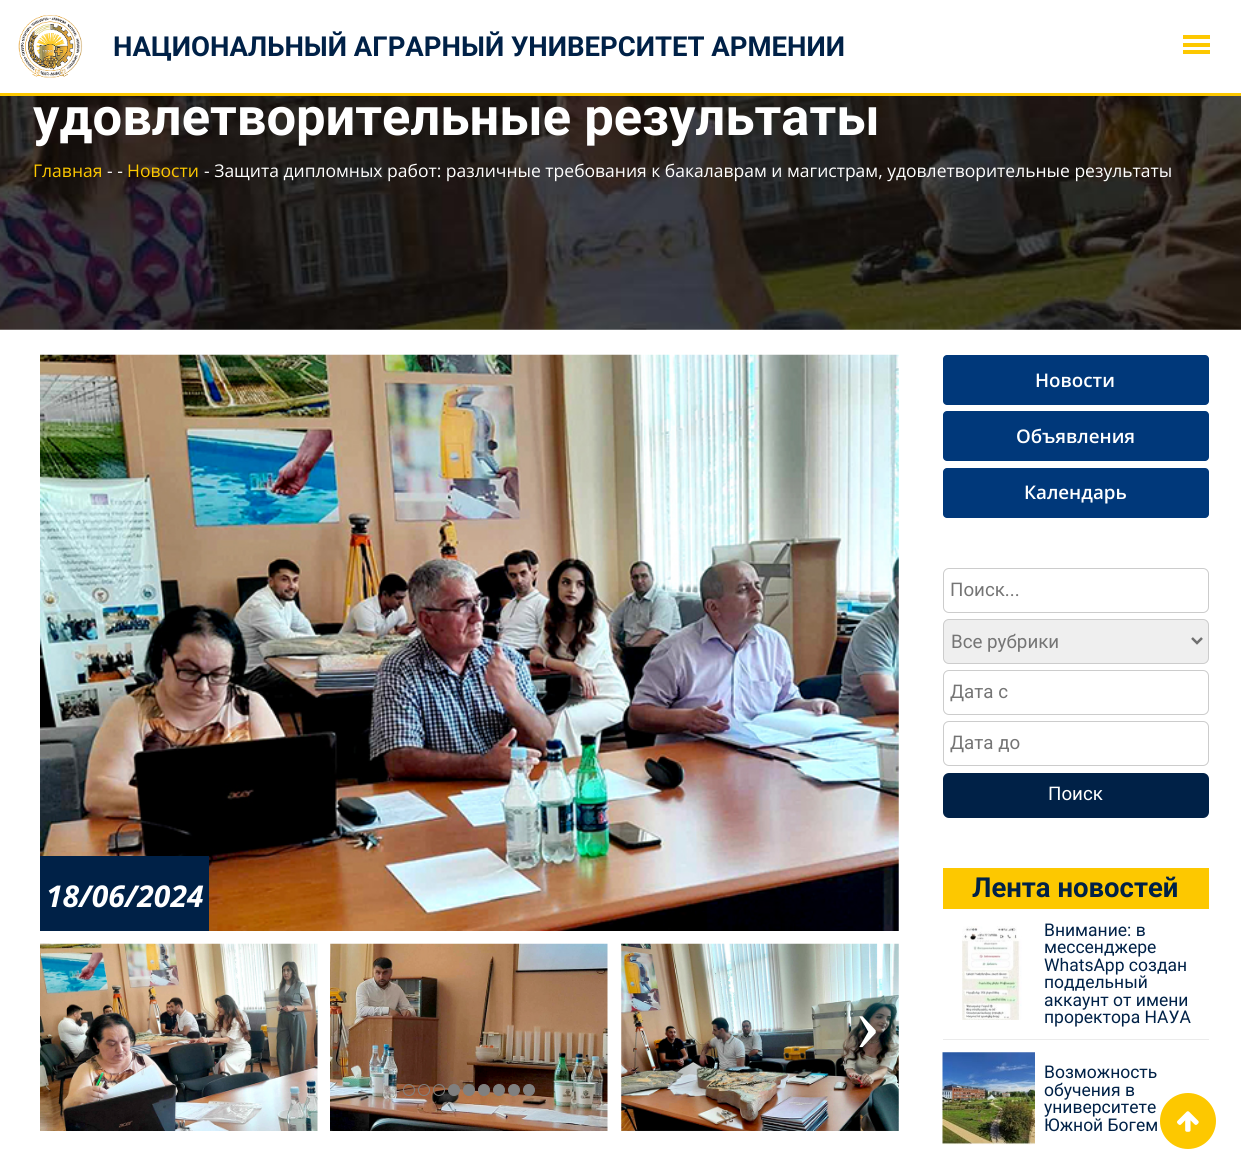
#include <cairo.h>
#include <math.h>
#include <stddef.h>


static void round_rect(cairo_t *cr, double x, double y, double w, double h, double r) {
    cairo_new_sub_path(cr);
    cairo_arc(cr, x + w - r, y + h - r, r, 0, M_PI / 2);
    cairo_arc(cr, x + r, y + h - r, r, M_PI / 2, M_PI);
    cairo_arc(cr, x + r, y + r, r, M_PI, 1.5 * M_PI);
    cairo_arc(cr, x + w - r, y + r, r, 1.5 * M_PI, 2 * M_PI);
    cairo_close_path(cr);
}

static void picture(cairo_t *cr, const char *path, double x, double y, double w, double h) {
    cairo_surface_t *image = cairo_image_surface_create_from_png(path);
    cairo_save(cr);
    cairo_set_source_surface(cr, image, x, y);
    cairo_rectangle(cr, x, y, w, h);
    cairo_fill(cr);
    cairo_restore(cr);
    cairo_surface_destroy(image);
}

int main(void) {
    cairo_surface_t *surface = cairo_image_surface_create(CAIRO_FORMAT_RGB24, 1241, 1155);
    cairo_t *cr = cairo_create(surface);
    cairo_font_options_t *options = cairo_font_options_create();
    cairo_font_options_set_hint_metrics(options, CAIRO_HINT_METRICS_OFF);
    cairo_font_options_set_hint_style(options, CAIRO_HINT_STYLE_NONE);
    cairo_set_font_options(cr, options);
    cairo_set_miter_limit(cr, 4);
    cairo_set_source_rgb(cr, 1, 1, 1);
    cairo_paint(cr);
    cairo_set_source_rgb(cr, 0.992, 0.784, 0);
    cairo_rectangle(cr, 0, 93, 1241, 3);
    cairo_fill(cr);
    picture(cr, "img1.png", 18, 15, 65, 63);
    cairo_select_font_face(cr, "Roboto", CAIRO_FONT_SLANT_NORMAL, CAIRO_FONT_WEIGHT_BOLD);
    cairo_set_font_size(cr, 27.5);
    cairo_set_source_rgb(cr, 0, 0.129, 0.278);
    cairo_move_to(cr, 113, 56);
    cairo_show_text(cr, "НАЦИОНАЛЬНЫЙ АГРАРНЫЙ УНИВЕРСИТЕТ АРМЕНИИ");
    cairo_set_source_rgb(cr, 0.992, 0.784, 0);
    cairo_rectangle(cr, 1183, 35, 27, 4);
    cairo_fill(cr);
    cairo_rectangle(cr, 1183, 43, 27, 4);
    cairo_fill(cr);
    cairo_rectangle(cr, 1183, 50, 27, 4);
    cairo_fill(cr);
    picture(cr, "img2.png", 0, 96, 1241, 234);
    cairo_set_font_size(cr, 52.5);
    cairo_set_source_rgb(cr, 1, 1, 1);
    cairo_move_to(cr, 33, 135);
    cairo_show_text(cr, "удовлетворительные результаты");
    cairo_select_font_face(cr, "Open Sans", CAIRO_FONT_SLANT_NORMAL, CAIRO_FONT_WEIGHT_NORMAL);
    cairo_set_font_size(cr, 17.5);
    cairo_set_source_rgb(cr, 0.992, 0.784, 0);
    cairo_move_to(cr, 33, 177);
    cairo_show_text(cr, "Главная");
    cairo_set_source_rgb(cr, 1, 1, 1);
    cairo_move_to(cr, 107, 177);
    cairo_show_text(cr, "- -");
    cairo_set_source_rgb(cr, 0.992, 0.784, 0);
    cairo_move_to(cr, 127, 177);
    cairo_show_text(cr, "Новости");
    cairo_set_source_rgb(cr, 1, 1, 1);
    cairo_move_to(cr, 204, 177);
    cairo_show_text(cr, "- Защита дипломных работ: различные требования к бакалаврам и магистрам, удовлетворительные результаты");
    picture(cr, "img3.png", 40, 354, 859, 577);
    cairo_set_source_rgb(cr, 0, 0.129, 0.278);
    cairo_rectangle(cr, 40, 856, 169, 75);
    cairo_fill(cr);
    cairo_select_font_face(cr, "Open Sans", CAIRO_FONT_SLANT_ITALIC, CAIRO_FONT_WEIGHT_BOLD);
    cairo_set_font_size(cr, 30);
    cairo_set_source_rgb(cr, 1, 1, 1);
    cairo_move_to(cr, 46, 907);
    cairo_show_text(cr, "18/06/2024");
    picture(cr, "img4.png", 40, 943, 278, 188);
    picture(cr, "img5.png", 330, 943, 278, 188);
    picture(cr, "img6.png", 621, 943, 278, 188);
    cairo_select_font_face(cr, "Liberation Serif", CAIRO_FONT_SLANT_NORMAL, CAIRO_FONT_WEIGHT_NORMAL);
    cairo_set_font_size(cr, 81);
    cairo_move_to(cr, 854, 1050);
    cairo_show_text(cr, "›");
    cairo_new_path(cr);
    cairo_arc(cr, 409, 1090, 5.5, 0, 2 * M_PI);
    cairo_set_source_rgb(cr, 0.502, 0.502, 0.502);
    cairo_set_line_width(cr, 1);
    cairo_stroke(cr);
    cairo_arc(cr, 424, 1090, 5.5, 0, 2 * M_PI);
    cairo_stroke(cr);
    cairo_arc(cr, 439, 1090, 5.5, 0, 2 * M_PI);
    cairo_stroke(cr);
    cairo_arc(cr, 454, 1090, 5.5, 0, 2 * M_PI);
    cairo_fill_preserve(cr);
    cairo_stroke(cr);
    cairo_arc(cr, 469, 1090, 5.5, 0, 2 * M_PI);
    cairo_fill_preserve(cr);
    cairo_stroke(cr);
    cairo_arc(cr, 484, 1090, 5.5, 0, 2 * M_PI);
    cairo_fill_preserve(cr);
    cairo_stroke(cr);
    cairo_arc(cr, 499, 1090, 5.5, 0, 2 * M_PI);
    cairo_fill_preserve(cr);
    cairo_stroke(cr);
    cairo_arc(cr, 514, 1090, 5.5, 0, 2 * M_PI);
    cairo_fill_preserve(cr);
    cairo_stroke(cr);
    cairo_arc(cr, 529, 1090, 5.5, 0, 2 * M_PI);
    cairo_fill_preserve(cr);
    cairo_stroke(cr);
    cairo_set_source_rgb(cr, 0, 0.22, 0.478);
    round_rect(cr, 943, 355, 266, 50, 4);
    cairo_fill(cr);
    cairo_select_font_face(cr, "Open Sans SemiBold", CAIRO_FONT_SLANT_NORMAL, CAIRO_FONT_WEIGHT_NORMAL);
    cairo_set_font_size(cr, 18.75);
    cairo_set_source_rgb(cr, 1, 1, 1);
    cairo_move_to(cr, 1035, 387);
    cairo_show_text(cr, "Новости");
    cairo_set_source_rgb(cr, 0, 0.22, 0.478);
    round_rect(cr, 943, 411, 266, 50, 4);
    cairo_fill(cr);
    cairo_set_source_rgb(cr, 1, 1, 1);
    cairo_move_to(cr, 1016, 443);
    cairo_show_text(cr, "Объявления");
    cairo_set_source_rgb(cr, 0, 0.22, 0.478);
    round_rect(cr, 943, 468, 266, 50, 4);
    cairo_fill(cr);
    cairo_set_source_rgb(cr, 1, 1, 1);
    cairo_move_to(cr, 1024, 499);
    cairo_show_text(cr, "Календарь");
    round_rect(cr, 943.5, 568.5, 265, 44, 5.5);
    cairo_set_source_rgb(cr, 0.8, 0.8, 0.8);
    cairo_stroke(cr);
    cairo_select_font_face(cr, "Roboto", CAIRO_FONT_SLANT_NORMAL, CAIRO_FONT_WEIGHT_NORMAL);
    cairo_set_source_rgb(cr, 0.459, 0.459, 0.459);
    cairo_move_to(cr, 950, 596);
    cairo_show_text(cr, "Поиск...");
    cairo_set_source_rgb(cr, 0.937, 0.937, 0.937);
    round_rect(cr, 943.5, 619.5, 265, 44, 5.5);
    cairo_fill_preserve(cr);
    cairo_set_source_rgb(cr, 0.8, 0.8, 0.8);
    cairo_stroke(cr);
    cairo_new_path(cr);
    cairo_move_to(cr, 1192, 638);
    cairo_line_to(cr, 1197, 643);
    cairo_line_to(cr, 1202, 638);
    cairo_set_source_rgb(cr, 0.439, 0.439, 0.439);
    cairo_set_line_width(cr, 2.5);
    cairo_stroke(cr);
    cairo_set_source_rgb(cr, 0.459, 0.459, 0.459);
    cairo_move_to(cr, 951, 648);
    cairo_show_text(cr, "Все рубрики");
    round_rect(cr, 943.5, 670.5, 265, 44, 5.5);
    cairo_set_source_rgb(cr, 0.8, 0.8, 0.8);
    cairo_set_line_width(cr, 1);
    cairo_stroke(cr);
    cairo_set_source_rgb(cr, 0.459, 0.459, 0.459);
    cairo_move_to(cr, 950, 698);
    cairo_show_text(cr, "Дата с");
    round_rect(cr, 943.5, 721.5, 265, 44, 5.5);
    cairo_set_source_rgb(cr, 0.8, 0.8, 0.8);
    cairo_stroke(cr);
    cairo_set_source_rgb(cr, 0.459, 0.459, 0.459);
    cairo_move_to(cr, 950, 749);
    cairo_show_text(cr, "Дата до");
    cairo_set_source_rgb(cr, 0, 0.129, 0.278);
    round_rect(cr, 943, 773, 266, 45, 6);
    cairo_fill(cr);
    cairo_set_source_rgb(cr, 1, 1, 1);
    cairo_move_to(cr, 1048, 800);
    cairo_show_text(cr, "Поиск");
    cairo_set_source_rgb(cr, 0.992, 0.784, 0);
    cairo_rectangle(cr, 943, 868, 266, 41);
    cairo_fill(cr);
    cairo_select_font_face(cr, "Roboto", CAIRO_FONT_SLANT_NORMAL, CAIRO_FONT_WEIGHT_BOLD);
    cairo_set_font_size(cr, 27.5);
    cairo_set_source_rgb(cr, 0, 0.129, 0.278);
    cairo_move_to(cr, 972, 897);
    cairo_show_text(cr, "Лента новостей");
    cairo_set_source_rgb(cr, 0.918, 0.918, 0.918);
    cairo_rectangle(cr, 943, 1039, 266, 1);
    cairo_fill(cr);
    picture(cr, "img7.png", 962, 926, 60, 94);
    cairo_select_font_face(cr, "Roboto", CAIRO_FONT_SLANT_NORMAL, CAIRO_FONT_WEIGHT_NORMAL);
    cairo_set_font_size(cr, 17.5);
    cairo_set_source_rgb(cr, 0, 0.129, 0.278);
    cairo_move_to(cr, 1044, 936);
    cairo_show_text(cr, "Внимание: в");
    cairo_move_to(cr, 1044, 953);
    cairo_show_text(cr, "мессенджере");
    cairo_move_to(cr, 1044, 971);
    cairo_show_text(cr, "WhatsApp создан");
    cairo_move_to(cr, 1044, 988);
    cairo_show_text(cr, "поддельный");
    cairo_move_to(cr, 1044, 1006);
    cairo_show_text(cr, "аккаунт от имени");
    cairo_move_to(cr, 1044, 1023);
    cairo_show_text(cr, "проректора НАУА");
    picture(cr, "img8.png", 942, 1052, 93, 93);
    cairo_move_to(cr, 1044, 1078);
    cairo_show_text(cr, "Возможность");
    cairo_move_to(cr, 1044, 1096);
    cairo_show_text(cr, "обучения в");
    cairo_move_to(cr, 1044, 1113);
    cairo_show_text(cr, "университете");
    cairo_move_to(cr, 1044, 1131);
    cairo_show_text(cr, "Южной Богем");
    cairo_set_source_rgb(cr, 0.992, 0.784, 0);
    cairo_new_path(cr);
    cairo_arc(cr, 1188, 1121, 28, 0, 2 * M_PI);
    cairo_fill(cr);
    picture(cr, "img9.png", 1177, 1111, 22, 21);
    cairo_surface_write_to_png(surface, "page.png");
    cairo_font_options_destroy(options);
    cairo_destroy(cr);
    cairo_surface_destroy(surface);
    return 0;
}
